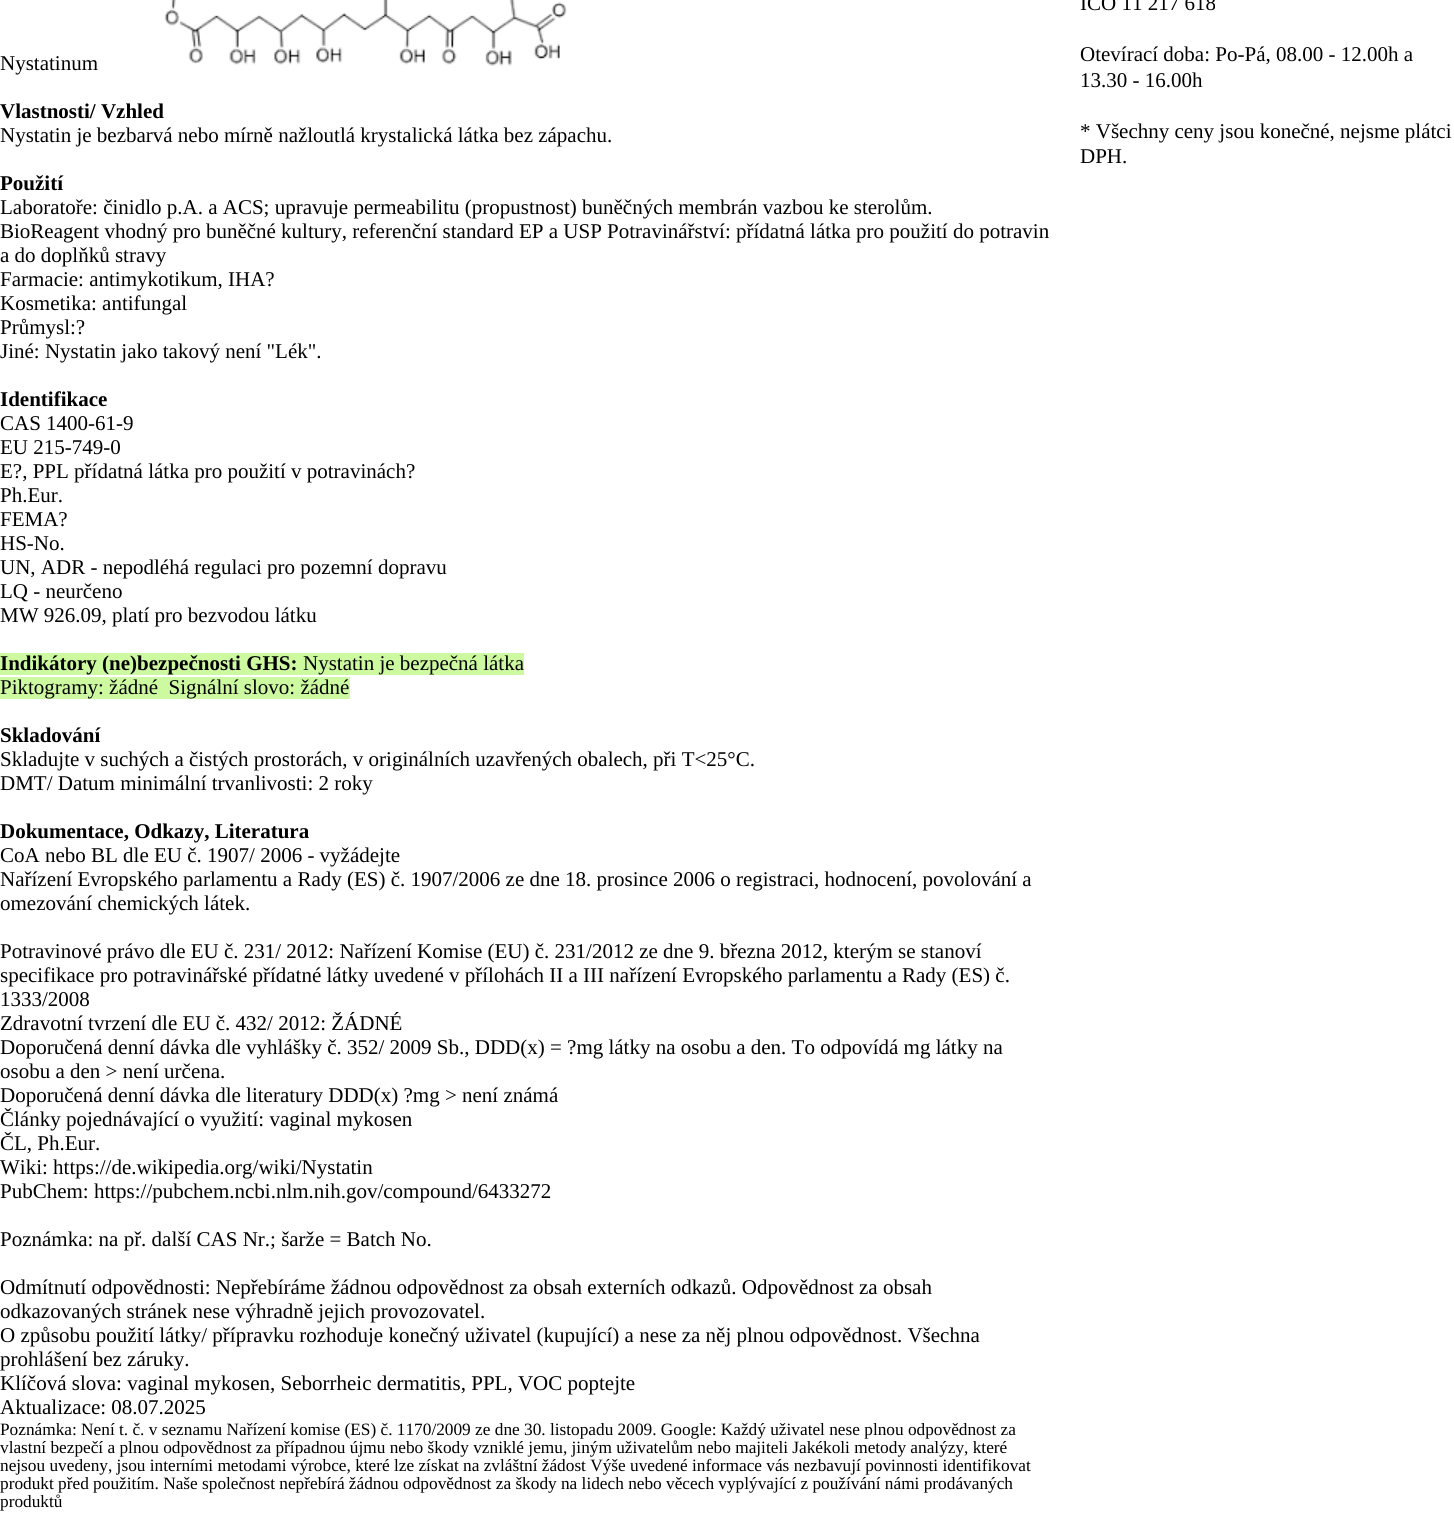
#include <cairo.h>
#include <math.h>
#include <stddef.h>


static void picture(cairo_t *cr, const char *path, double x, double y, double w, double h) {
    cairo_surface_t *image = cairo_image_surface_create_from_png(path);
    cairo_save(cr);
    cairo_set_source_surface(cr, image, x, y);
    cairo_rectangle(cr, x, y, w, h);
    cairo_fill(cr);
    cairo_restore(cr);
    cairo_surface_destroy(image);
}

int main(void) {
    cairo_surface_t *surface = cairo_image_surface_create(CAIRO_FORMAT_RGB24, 1454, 1529);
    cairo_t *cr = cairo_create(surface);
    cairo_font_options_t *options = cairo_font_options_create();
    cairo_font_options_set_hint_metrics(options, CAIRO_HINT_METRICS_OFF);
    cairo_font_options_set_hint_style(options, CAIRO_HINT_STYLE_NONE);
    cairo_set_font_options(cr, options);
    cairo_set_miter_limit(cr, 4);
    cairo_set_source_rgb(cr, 1, 1, 1);
    cairo_paint(cr);
    cairo_select_font_face(cr, "Liberation Serif", CAIRO_FONT_SLANT_NORMAL, CAIRO_FONT_WEIGHT_NORMAL);
    cairo_set_font_size(cr, 21);
    cairo_set_source_rgb(cr, 0, 0, 0);
    cairo_move_to(cr, 0, 70);
    cairo_show_text(cr, "Nystatinum");
    picture(cr, "img1.png", 164, 0, 403, 66);
    cairo_select_font_face(cr, "Liberation Serif", CAIRO_FONT_SLANT_NORMAL, CAIRO_FONT_WEIGHT_BOLD);
    cairo_move_to(cr, 0, 118);
    cairo_show_text(cr, "Vlastnosti/ Vzhled");
    cairo_select_font_face(cr, "Liberation Serif", CAIRO_FONT_SLANT_NORMAL, CAIRO_FONT_WEIGHT_NORMAL);
    cairo_move_to(cr, 0, 142);
    cairo_show_text(cr, "Nystatin je bezbarvá nebo mírně nažloutlá krystalická látka bez zápachu.");
    cairo_select_font_face(cr, "Liberation Serif", CAIRO_FONT_SLANT_NORMAL, CAIRO_FONT_WEIGHT_BOLD);
    cairo_move_to(cr, 0, 190);
    cairo_show_text(cr, "Použití");
    cairo_select_font_face(cr, "Liberation Serif", CAIRO_FONT_SLANT_NORMAL, CAIRO_FONT_WEIGHT_NORMAL);
    cairo_move_to(cr, 0, 214);
    cairo_show_text(cr, "Laboratoře: činidlo p.A. a ACS; upravuje permeabilitu (propustnost) buněčných membrán vazbou ke sterolům.");
    cairo_move_to(cr, 0, 238);
    cairo_show_text(cr, "BioReagent vhodný pro buněčné kultury, referenční standard EP a USP Potravinářství: přídatná látka pro použití do potravin");
    cairo_move_to(cr, 0, 262);
    cairo_show_text(cr, "a do doplňků stravy");
    cairo_move_to(cr, 0, 286);
    cairo_show_text(cr, "Farmacie: antimykotikum, IHA?");
    cairo_move_to(cr, 0, 310);
    cairo_show_text(cr, "Kosmetika: antifungal");
    cairo_move_to(cr, 0, 334);
    cairo_show_text(cr, "Průmysl:?");
    cairo_move_to(cr, 0, 358);
    cairo_show_text(cr, "Jiné: Nystatin jako takový není \"Lék\".");
    cairo_select_font_face(cr, "Liberation Serif", CAIRO_FONT_SLANT_NORMAL, CAIRO_FONT_WEIGHT_BOLD);
    cairo_move_to(cr, 0, 406);
    cairo_show_text(cr, "Identifikace");
    cairo_select_font_face(cr, "Liberation Serif", CAIRO_FONT_SLANT_NORMAL, CAIRO_FONT_WEIGHT_NORMAL);
    cairo_move_to(cr, 0, 430);
    cairo_show_text(cr, "CAS 1400-61-9");
    cairo_move_to(cr, 0, 454);
    cairo_show_text(cr, "EU 215-749-0");
    cairo_move_to(cr, 0, 478);
    cairo_show_text(cr, "E?, PPL přídatná látka pro použití v potravinách?");
    cairo_move_to(cr, 0, 502);
    cairo_show_text(cr, "Ph.Eur.");
    cairo_move_to(cr, 0, 526);
    cairo_show_text(cr, "FEMA?");
    cairo_move_to(cr, 0, 550);
    cairo_show_text(cr, "HS-No.");
    cairo_move_to(cr, 0, 574);
    cairo_show_text(cr, "UN, ADR - nepodléhá regulaci pro pozemní dopravu");
    cairo_move_to(cr, 0, 598);
    cairo_show_text(cr, "LQ - neurčeno");
    cairo_move_to(cr, 0, 622);
    cairo_show_text(cr, "MW 926.09, platí pro bezvodou látku");
    cairo_set_source_rgb(cr, 0.804, 0.98, 0.631);
    cairo_rectangle(cr, 0, 653, 524, 22);
    cairo_fill(cr);
    cairo_select_font_face(cr, "Liberation Serif", CAIRO_FONT_SLANT_NORMAL, CAIRO_FONT_WEIGHT_BOLD);
    cairo_set_source_rgb(cr, 0, 0, 0);
    cairo_move_to(cr, 0, 670);
    cairo_show_text(cr, "Indikátory (ne)bezpečnosti GHS:");
    cairo_select_font_face(cr, "Liberation Serif", CAIRO_FONT_SLANT_NORMAL, CAIRO_FONT_WEIGHT_NORMAL);
    cairo_move_to(cr, 303, 670);
    cairo_show_text(cr, "Nystatin je bezpečná látka");
    cairo_set_source_rgb(cr, 0.804, 0.98, 0.631);
    cairo_rectangle(cr, 0, 677, 350, 22);
    cairo_fill(cr);
    cairo_set_source_rgb(cr, 0, 0, 0);
    cairo_move_to(cr, 0, 694);
    cairo_show_text(cr, "Piktogramy: žádné  Signální slovo: žádné");
    cairo_select_font_face(cr, "Liberation Serif", CAIRO_FONT_SLANT_NORMAL, CAIRO_FONT_WEIGHT_BOLD);
    cairo_move_to(cr, 0, 742);
    cairo_show_text(cr, "Skladování");
    cairo_select_font_face(cr, "Liberation Serif", CAIRO_FONT_SLANT_NORMAL, CAIRO_FONT_WEIGHT_NORMAL);
    cairo_move_to(cr, 0, 766);
    cairo_show_text(cr, "Skladujte v suchých a čistých prostorách, v originálních uzavřených obalech, při T<25°C.");
    cairo_move_to(cr, 0, 790);
    cairo_show_text(cr, "DMT/ Datum minimální trvanlivosti: 2 roky");
    cairo_select_font_face(cr, "Liberation Serif", CAIRO_FONT_SLANT_NORMAL, CAIRO_FONT_WEIGHT_BOLD);
    cairo_move_to(cr, 0, 838);
    cairo_show_text(cr, "Dokumentace, Odkazy, Literatura");
    cairo_select_font_face(cr, "Liberation Serif", CAIRO_FONT_SLANT_NORMAL, CAIRO_FONT_WEIGHT_NORMAL);
    cairo_move_to(cr, 0, 862);
    cairo_show_text(cr, "CoA nebo BL dle EU č. 1907/ 2006 - vyžádejte");
    cairo_move_to(cr, 0, 886);
    cairo_show_text(cr, "Nařízení Evropského parlamentu a Rady (ES) č. 1907/2006 ze dne 18. prosince 2006 o registraci, hodnocení, povolování a");
    cairo_move_to(cr, 0, 910);
    cairo_show_text(cr, "omezování chemických látek.");
    cairo_move_to(cr, 0, 958);
    cairo_show_text(cr, "Potravinové právo dle EU č. 231/ 2012: Nařízení Komise (EU) č. 231/2012 ze dne 9. března 2012, kterým se stanoví");
    cairo_move_to(cr, 0, 982);
    cairo_show_text(cr, "specifikace pro potravinářské přídatné látky uvedené v přílohách II a III nařízení Evropského parlamentu a Rady (ES) č.");
    cairo_move_to(cr, 0, 1006);
    cairo_show_text(cr, "1333/2008");
    cairo_move_to(cr, 0, 1030);
    cairo_show_text(cr, "Zdravotní tvrzení dle EU č. 432/ 2012: ŽÁDNÉ");
    cairo_move_to(cr, 0, 1054);
    cairo_show_text(cr, "Doporučená denní dávka dle vyhlášky č. 352/ 2009 Sb., DDD(x) = ?mg látky na osobu a den. To odpovídá mg látky na");
    cairo_move_to(cr, 0, 1078);
    cairo_show_text(cr, "osobu a den > není určena.");
    cairo_move_to(cr, 0, 1102);
    cairo_show_text(cr, "Doporučená denní dávka dle literatury DDD(x) ?mg > není známá");
    cairo_move_to(cr, 0, 1126);
    cairo_show_text(cr, "Články pojednávající o využití: vaginal mykosen");
    cairo_move_to(cr, 0, 1150);
    cairo_show_text(cr, "ČL, Ph.Eur.");
    cairo_move_to(cr, 0, 1174);
    cairo_show_text(cr, "Wiki: https://de.wikipedia.org/wiki/Nystatin");
    cairo_move_to(cr, 0, 1198);
    cairo_show_text(cr, "PubChem: https://pubchem.ncbi.nlm.nih.gov/compound/6433272");
    cairo_move_to(cr, 0, 1246);
    cairo_show_text(cr, "Poznámka: na př. další CAS Nr.; šarže = Batch No.");
    cairo_move_to(cr, 0, 1294);
    cairo_show_text(cr, "Odmítnutí odpovědnosti: Nepřebíráme žádnou odpovědnost za obsah externích odkazů. Odpovědnost za obsah");
    cairo_move_to(cr, 0, 1318);
    cairo_show_text(cr, "odkazovaných stránek nese výhradně jejich provozovatel.");
    cairo_move_to(cr, 0, 1342);
    cairo_show_text(cr, "O způsobu použití látky/ přípravku rozhoduje konečný uživatel (kupující) a nese za něj plnou odpovědnost. Všechna");
    cairo_move_to(cr, 0, 1366);
    cairo_show_text(cr, "prohlášení bez záruky.");
    cairo_move_to(cr, 0, 1390);
    cairo_show_text(cr, "Klíčová slova: vaginal mykosen, Seborrheic dermatitis, PPL, VOC poptejte");
    cairo_move_to(cr, 0, 1414);
    cairo_show_text(cr, "Aktualizace: 08.07.2025");
    cairo_set_font_size(cr, 17.28);
    cairo_move_to(cr, 0, 1435);
    cairo_show_text(cr, "Poznámka: Není t. č. v seznamu Nařízení komise (ES) č. 1170/2009 ze dne 30. listopadu 2009. Google: Každý uživatel nese plnou odpovědnost za");
    cairo_move_to(cr, 0, 1453);
    cairo_show_text(cr, "vlastní bezpečí a plnou odpovědnost za případnou újmu nebo škody vzniklé jemu, jiným uživatelům nebo majiteli Jakékoli metody analýzy, které");
    cairo_move_to(cr, 0, 1471);
    cairo_show_text(cr, "nejsou uvedeny, jsou interními metodami výrobce, které lze získat na zvláštní žádost Výše uvedené informace vás nezbavují povinnosti identifikovat");
    cairo_move_to(cr, 0, 1489);
    cairo_show_text(cr, "produkt před použitím. Naše společnost nepřebírá žádnou odpovědnost za škody na lidech nebo věcech vyplývající z používání námi prodávaných");
    cairo_move_to(cr, 0, 1507);
    cairo_show_text(cr, "produktů");
    cairo_set_font_size(cr, 21);
    cairo_move_to(cr, 1080, 10);
    cairo_show_text(cr, "IČO 11 217 618");
    cairo_move_to(cr, 1080, 61);
    cairo_show_text(cr, "Otevírací doba: Po-Pá, 08.00 - 12.00h a");
    cairo_move_to(cr, 1080, 87);
    cairo_show_text(cr, "13.30 - 16.00h");
    cairo_move_to(cr, 1080, 138);
    cairo_show_text(cr, "* Všechny ceny jsou konečné, nejsme plátci");
    cairo_move_to(cr, 1080, 163);
    cairo_show_text(cr, "DPH.");
    cairo_surface_write_to_png(surface, "page.png");
    cairo_font_options_destroy(options);
    cairo_destroy(cr);
    cairo_surface_destroy(surface);
    return 0;
}
